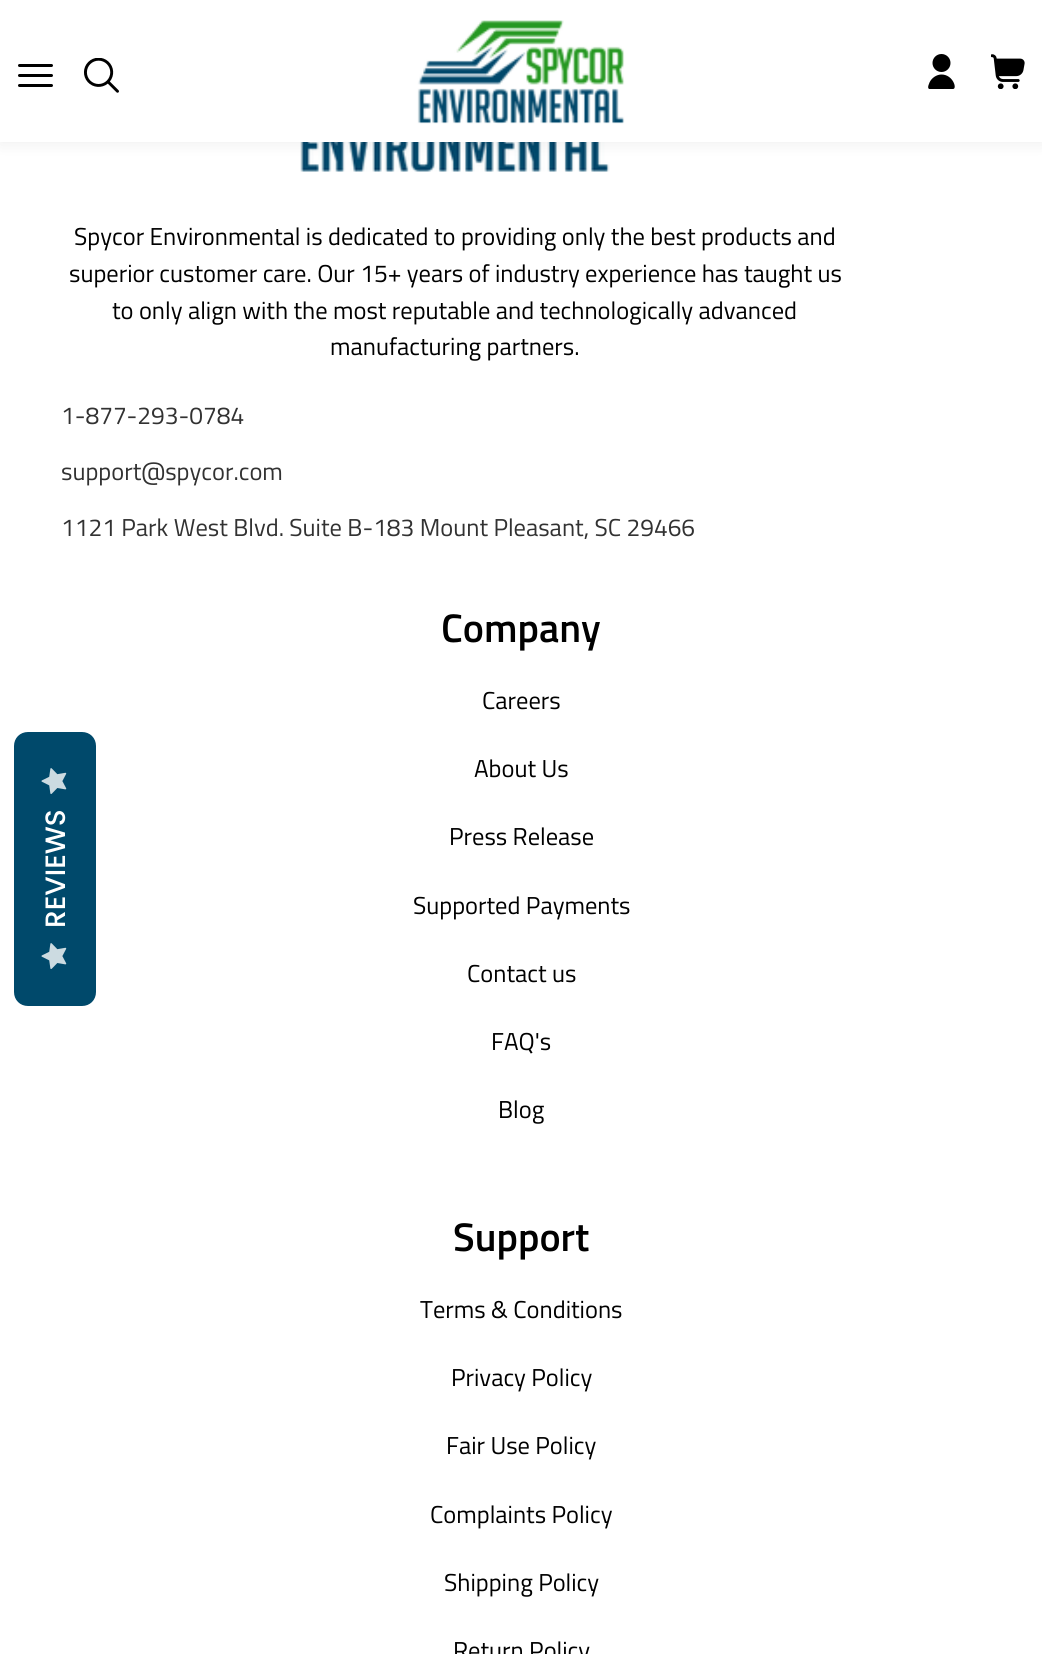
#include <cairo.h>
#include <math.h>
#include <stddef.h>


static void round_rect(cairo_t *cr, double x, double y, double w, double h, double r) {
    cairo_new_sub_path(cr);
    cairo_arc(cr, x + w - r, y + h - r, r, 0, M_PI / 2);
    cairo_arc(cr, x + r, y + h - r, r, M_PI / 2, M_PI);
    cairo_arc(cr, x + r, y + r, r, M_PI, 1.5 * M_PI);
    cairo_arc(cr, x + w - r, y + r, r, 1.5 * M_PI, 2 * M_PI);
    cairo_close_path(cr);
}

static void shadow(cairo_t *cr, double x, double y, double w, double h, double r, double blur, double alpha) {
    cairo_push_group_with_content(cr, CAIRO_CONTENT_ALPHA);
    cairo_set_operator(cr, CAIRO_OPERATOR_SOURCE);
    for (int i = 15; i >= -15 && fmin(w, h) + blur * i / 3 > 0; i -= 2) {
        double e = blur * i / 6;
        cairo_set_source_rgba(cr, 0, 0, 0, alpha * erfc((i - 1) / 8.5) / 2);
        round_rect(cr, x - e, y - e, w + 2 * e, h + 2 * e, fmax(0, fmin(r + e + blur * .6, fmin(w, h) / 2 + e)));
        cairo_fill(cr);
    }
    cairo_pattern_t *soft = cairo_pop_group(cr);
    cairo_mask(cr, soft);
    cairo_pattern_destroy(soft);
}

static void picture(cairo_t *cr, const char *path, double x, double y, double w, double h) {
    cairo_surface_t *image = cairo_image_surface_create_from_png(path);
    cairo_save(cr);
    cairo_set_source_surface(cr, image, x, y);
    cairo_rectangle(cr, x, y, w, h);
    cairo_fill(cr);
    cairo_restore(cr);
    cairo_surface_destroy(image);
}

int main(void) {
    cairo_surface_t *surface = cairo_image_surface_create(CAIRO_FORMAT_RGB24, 1042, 1654);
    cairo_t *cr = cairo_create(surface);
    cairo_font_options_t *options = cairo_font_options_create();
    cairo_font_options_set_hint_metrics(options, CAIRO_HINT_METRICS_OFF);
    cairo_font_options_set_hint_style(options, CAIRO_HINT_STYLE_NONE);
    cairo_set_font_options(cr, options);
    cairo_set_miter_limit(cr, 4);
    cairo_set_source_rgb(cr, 1, 1, 1);
    cairo_paint(cr);
    picture(cr, "img5.png", 300, 142, 310, 30);
    cairo_set_source_rgb(cr, 0, 0, 0);
    shadow(cr, 0, 0, 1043, 142, 0, 9, 0.08);
    cairo_set_source_rgb(cr, 1, 1, 1);
    cairo_rectangle(cr, 0, 0, 1042, 142);
    cairo_fill(cr);
    cairo_set_source_rgb(cr, 0, 0, 0);
    round_rect(cr, 18, 74, 35, 3, 1.5);
    cairo_fill(cr);
    round_rect(cr, 18, 64, 35, 3, 1.5);
    cairo_fill(cr);
    round_rect(cr, 18, 84, 35, 3, 1.5);
    cairo_fill(cr);
    picture(cr, "img1.png", 84, 58, 35, 35);
    picture(cr, "img2.png", 417, 20, 208, 104);
    cairo_arc(cr, 941.5, 63, 9, 0, 2 * M_PI);
    cairo_fill(cr);
    cairo_save(cr);
    cairo_rectangle(cr, 924, 54, 35, 35);
    cairo_clip(cr);
    cairo_new_path(cr);
    cairo_move_to(cr, 941.5, 74.5);
    cairo_curve_to(cr, 936.5, 74.5, 931.5, 78, 929.5, 82.5);
    cairo_curve_to(cr, 925.5, 91.5, 931, 89, 937.5, 89);
    cairo_line_to(cr, 953, 89);
    cairo_curve_to(cr, 957.5, 89, 953, 74.5, 941.5, 74.5);
    cairo_close_path(cr);
    cairo_fill(cr);
    cairo_restore(cr);
    picture(cr, "img3.png", 991, 54, 34, 35);
    cairo_set_source_rgb(cr, 0, 0.286, 0.42);
    cairo_new_path(cr);
    cairo_move_to(cr, 14, 992);
    cairo_line_to(cr, 14, 746);
    cairo_curve_to(cr, 14, 738, 20, 732, 28, 732);
    cairo_line_to(cr, 82, 732);
    cairo_curve_to(cr, 90, 732, 96, 738, 96, 746);
    cairo_line_to(cr, 96, 992);
    cairo_curve_to(cr, 96, 1000, 90, 1006, 82, 1006);
    cairo_line_to(cr, 28, 1006);
    cairo_curve_to(cr, 20, 1006, 14, 1000, 14, 992);
    cairo_close_path(cr);
    cairo_fill(cr);
    picture(cr, "img4.png", 41, 768, 26, 26);
    cairo_select_font_face(cr, "Poppins Medium", CAIRO_FONT_SLANT_NORMAL, CAIRO_FONT_WEIGHT_NORMAL);
    cairo_set_font_size(cr, 28);
    cairo_set_source_rgb(cr, 1, 1, 1);
    cairo_save(cr);
    cairo_translate(cr, 65, 928);
    cairo_rotate(cr, -90 * M_PI / 180);
    cairo_move_to(cr, 0, 0);
    cairo_show_text(cr, "REVIEWS");
    cairo_restore(cr);
    picture(cr, "img4.png", 41, 943, 26, 26);
    cairo_select_font_face(cr, "Titillium Web", CAIRO_FONT_SLANT_NORMAL, CAIRO_FONT_WEIGHT_NORMAL);
    cairo_set_font_size(cr, 24.5);
    cairo_set_source_rgb(cr, 0, 0, 0);
    cairo_move_to(cr, 74, 245);
    cairo_show_text(cr, "Spycor Environmental is dedicated to providing only the best products and");
    cairo_move_to(cr, 69, 282);
    cairo_show_text(cr, "superior customer care. Our 15+ years of industry experience has taught us");
    cairo_move_to(cr, 112, 319);
    cairo_show_text(cr, "to only align with the most reputable and technologically advanced");
    cairo_move_to(cr, 330, 355);
    cairo_show_text(cr, "manufacturing partners.");
    cairo_set_source_rgb(cr, 0.196, 0.196, 0.196);
    cairo_move_to(cr, 61, 424);
    cairo_show_text(cr, "1-877-293-0784");
    cairo_move_to(cr, 61, 480);
    cairo_show_text(cr, "support@spycor.com");
    cairo_move_to(cr, 61, 536);
    cairo_show_text(cr, "1121 Park West Blvd. Suite B-183 Mount Pleasant, SC 29466");
    cairo_select_font_face(cr, "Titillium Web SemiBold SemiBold", CAIRO_FONT_SLANT_NORMAL, CAIRO_FONT_WEIGHT_NORMAL);
    cairo_set_font_size(cr, 40);
    cairo_set_source_rgb(cr, 0, 0, 0);
    cairo_move_to(cr, 441, 642);
    cairo_show_text(cr, "Company");
    cairo_select_font_face(cr, "Titillium Web", CAIRO_FONT_SLANT_NORMAL, CAIRO_FONT_WEIGHT_NORMAL);
    cairo_set_font_size(cr, 24.5);
    cairo_move_to(cr, 482, 709);
    cairo_show_text(cr, "Careers");
    cairo_move_to(cr, 474, 777);
    cairo_show_text(cr, "About Us");
    cairo_move_to(cr, 449, 845);
    cairo_show_text(cr, "Press Release");
    cairo_move_to(cr, 413, 914);
    cairo_show_text(cr, "Supported Payments");
    cairo_move_to(cr, 467, 982);
    cairo_show_text(cr, "Contact us");
    cairo_move_to(cr, 491, 1050);
    cairo_show_text(cr, "FAQ's");
    cairo_move_to(cr, 498, 1118);
    cairo_show_text(cr, "Blog");
    cairo_select_font_face(cr, "Titillium Web SemiBold SemiBold", CAIRO_FONT_SLANT_NORMAL, CAIRO_FONT_WEIGHT_NORMAL);
    cairo_set_font_size(cr, 40);
    cairo_move_to(cr, 453, 1251);
    cairo_show_text(cr, "Support");
    cairo_select_font_face(cr, "Titillium Web", CAIRO_FONT_SLANT_NORMAL, CAIRO_FONT_WEIGHT_NORMAL);
    cairo_set_font_size(cr, 24.5);
    cairo_move_to(cr, 420, 1318);
    cairo_show_text(cr, "Terms & Conditions");
    cairo_move_to(cr, 451, 1386);
    cairo_show_text(cr, "Privacy Policy");
    cairo_move_to(cr, 446, 1454);
    cairo_show_text(cr, "Fair Use Policy");
    cairo_move_to(cr, 430, 1523);
    cairo_show_text(cr, "Complaints Policy");
    cairo_move_to(cr, 444, 1591);
    cairo_show_text(cr, "Shipping Policy");
    cairo_move_to(cr, 453, 1659);
    cairo_show_text(cr, "Return Policy");
    cairo_surface_write_to_png(surface, "page.png");
    cairo_font_options_destroy(options);
    cairo_destroy(cr);
    cairo_surface_destroy(surface);
    return 0;
}
